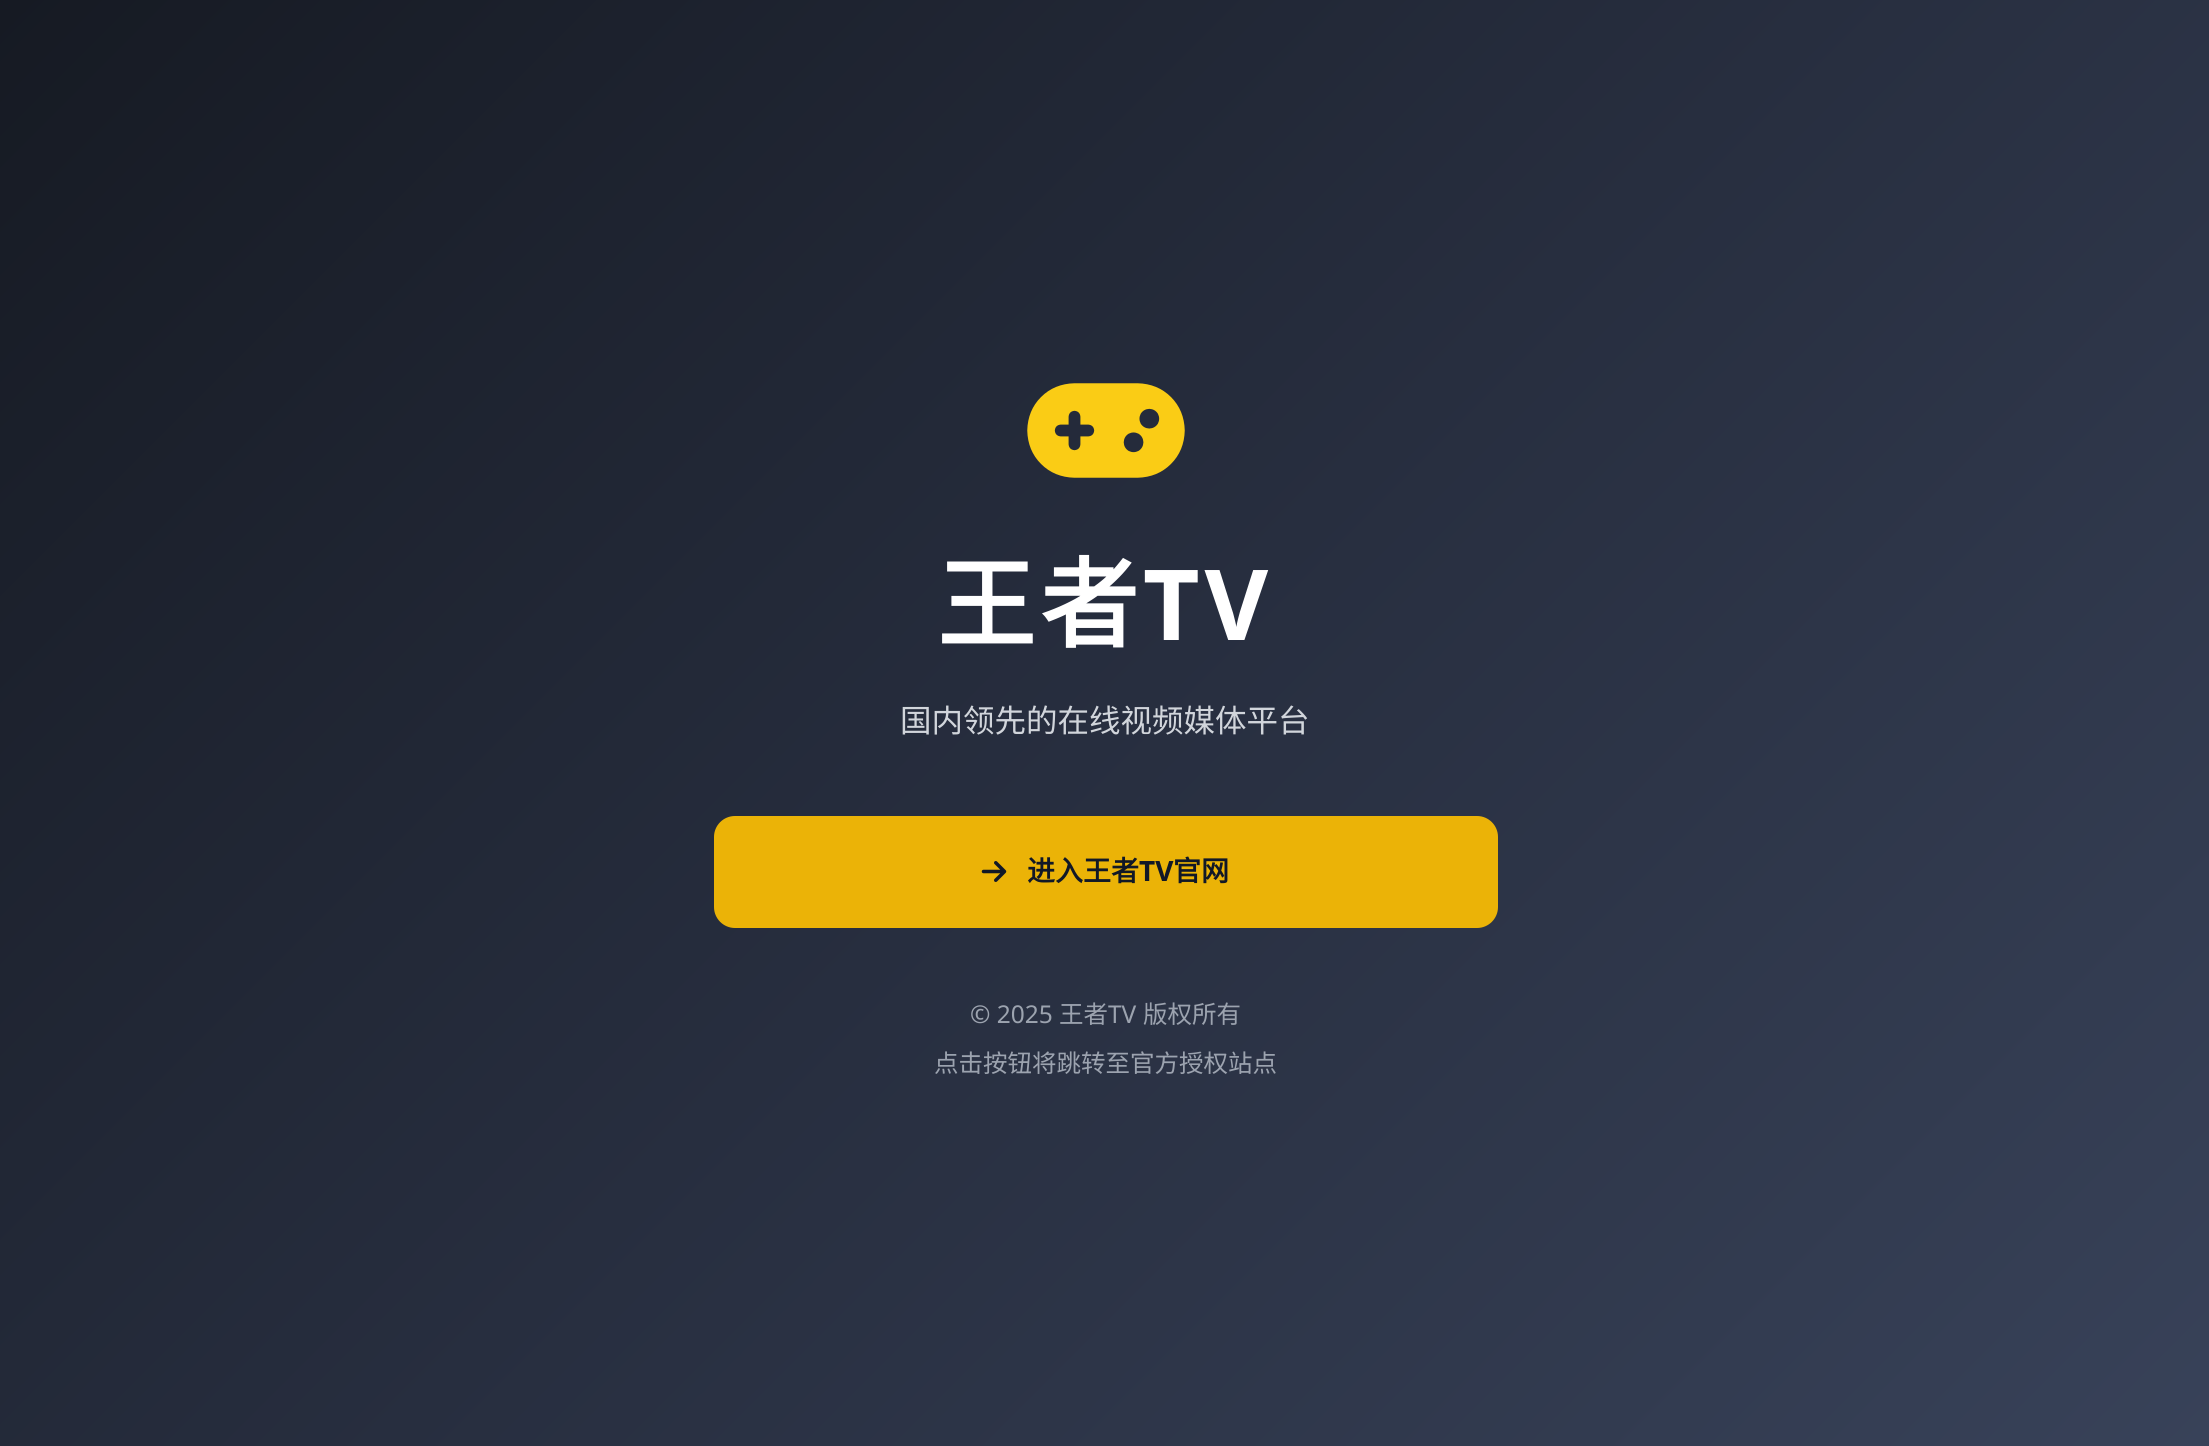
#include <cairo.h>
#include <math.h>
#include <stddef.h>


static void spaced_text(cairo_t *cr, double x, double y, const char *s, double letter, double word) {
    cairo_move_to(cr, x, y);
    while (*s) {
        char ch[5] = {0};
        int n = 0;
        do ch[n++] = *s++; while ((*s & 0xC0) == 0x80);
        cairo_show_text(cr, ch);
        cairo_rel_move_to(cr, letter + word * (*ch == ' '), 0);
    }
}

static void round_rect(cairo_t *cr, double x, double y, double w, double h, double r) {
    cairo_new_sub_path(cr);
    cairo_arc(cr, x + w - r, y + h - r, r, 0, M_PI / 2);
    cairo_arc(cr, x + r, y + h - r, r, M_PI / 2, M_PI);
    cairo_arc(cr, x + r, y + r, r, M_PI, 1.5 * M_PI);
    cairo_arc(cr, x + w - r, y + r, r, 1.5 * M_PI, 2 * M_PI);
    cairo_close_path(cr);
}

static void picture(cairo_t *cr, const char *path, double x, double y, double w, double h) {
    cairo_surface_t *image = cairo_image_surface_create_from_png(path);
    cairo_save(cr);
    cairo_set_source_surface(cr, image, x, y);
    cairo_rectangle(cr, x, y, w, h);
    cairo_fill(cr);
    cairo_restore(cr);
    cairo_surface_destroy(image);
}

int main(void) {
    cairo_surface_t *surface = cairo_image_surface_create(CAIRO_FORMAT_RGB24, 2209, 1446);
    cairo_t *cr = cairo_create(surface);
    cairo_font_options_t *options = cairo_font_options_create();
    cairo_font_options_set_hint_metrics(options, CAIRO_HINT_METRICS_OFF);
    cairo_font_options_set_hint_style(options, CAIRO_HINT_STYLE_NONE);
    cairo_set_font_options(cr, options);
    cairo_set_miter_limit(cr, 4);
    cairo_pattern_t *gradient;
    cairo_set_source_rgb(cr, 1, 1, 1);
    cairo_paint(cr);
    gradient = cairo_pattern_create_linear(191, -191, 2020, 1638);
    cairo_pattern_add_color_stop_rgba(gradient, 0, 0.086, 0.102, 0.137, 1);
    cairo_pattern_add_color_stop_rgba(gradient, 0.5, 0.153, 0.18, 0.247, 1);
    cairo_pattern_add_color_stop_rgba(gradient, 1, 0.22, 0.259, 0.349, 1);
    cairo_set_source(cr, gradient);
    cairo_pattern_destroy(gradient);
    cairo_rectangle(cr, 0, 0, 2209, 1446);
    cairo_fill(cr);
    picture(cr, "img1.png", 1027, 383, 158, 95);
    cairo_select_font_face(cr, "Noto Sans CJK SC", CAIRO_FONT_SLANT_NORMAL, CAIRO_FONT_WEIGHT_BOLD);
    cairo_set_font_size(cr, 98);
    cairo_set_source_rgb(cr, 1, 1, 1);
    spaced_text(cr, 937, 640, "王者", 5, 0);
    cairo_select_font_face(cr, "Noto Sans", CAIRO_FONT_SLANT_NORMAL, CAIRO_FONT_WEIGHT_BOLD);
    spaced_text(cr, 1143, 640, "TV", 5, 0);
    cairo_select_font_face(cr, "Noto Sans CJK SC", CAIRO_FONT_SLANT_NORMAL, CAIRO_FONT_WEIGHT_NORMAL);
    cairo_set_font_size(cr, 31.5);
    cairo_set_source_rgb(cr, 0.82, 0.835, 0.859);
    cairo_move_to(cr, 900, 732);
    cairo_show_text(cr, "国内领先的在线视频媒体平台");
    cairo_set_source_rgb(cr, 0.918, 0.702, 0.031);
    round_rect(cr, 714, 816, 784, 112, 21);
    cairo_fill(cr);
    picture(cr, "img2.png", 981, 861, 26, 21);
    cairo_select_font_face(cr, "Noto Sans CJK SC", CAIRO_FONT_SLANT_NORMAL, CAIRO_FONT_WEIGHT_BOLD);
    cairo_set_font_size(cr, 28);
    cairo_set_source_rgb(cr, 0.067, 0.094, 0.153);
    cairo_move_to(cr, 1027, 881);
    cairo_show_text(cr, "进入王者");
    cairo_select_font_face(cr, "Noto Sans", CAIRO_FONT_SLANT_NORMAL, CAIRO_FONT_WEIGHT_BOLD);
    cairo_move_to(cr, 1139, 881);
    cairo_show_text(cr, "TV");
    cairo_select_font_face(cr, "Noto Sans CJK SC", CAIRO_FONT_SLANT_NORMAL, CAIRO_FONT_WEIGHT_BOLD);
    cairo_move_to(cr, 1173, 881);
    cairo_show_text(cr, "官网");
    cairo_select_font_face(cr, "Noto Sans", CAIRO_FONT_SLANT_NORMAL, CAIRO_FONT_WEIGHT_NORMAL);
    cairo_set_font_size(cr, 24.5);
    cairo_set_source_rgb(cr, 0.612, 0.639, 0.686);
    cairo_move_to(cr, 970, 1023);
    cairo_show_text(cr, "© 2025");
    cairo_select_font_face(cr, "Noto Sans CJK SC", CAIRO_FONT_SLANT_NORMAL, CAIRO_FONT_WEIGHT_NORMAL);
    cairo_move_to(cr, 1059, 1023);
    cairo_show_text(cr, "王者");
    cairo_select_font_face(cr, "Noto Sans", CAIRO_FONT_SLANT_NORMAL, CAIRO_FONT_WEIGHT_NORMAL);
    cairo_move_to(cr, 1108, 1023);
    cairo_show_text(cr, "TV");
    cairo_select_font_face(cr, "Noto Sans CJK SC", CAIRO_FONT_SLANT_NORMAL, CAIRO_FONT_WEIGHT_NORMAL);
    cairo_move_to(cr, 1143, 1023);
    cairo_show_text(cr, "版权所有");
    cairo_move_to(cr, 934, 1072);
    cairo_show_text(cr, "点击按钮将跳转至官方授权站点");
    cairo_surface_write_to_png(surface, "page.png");
    cairo_font_options_destroy(options);
    cairo_destroy(cr);
    cairo_surface_destroy(surface);
    return 0;
}
